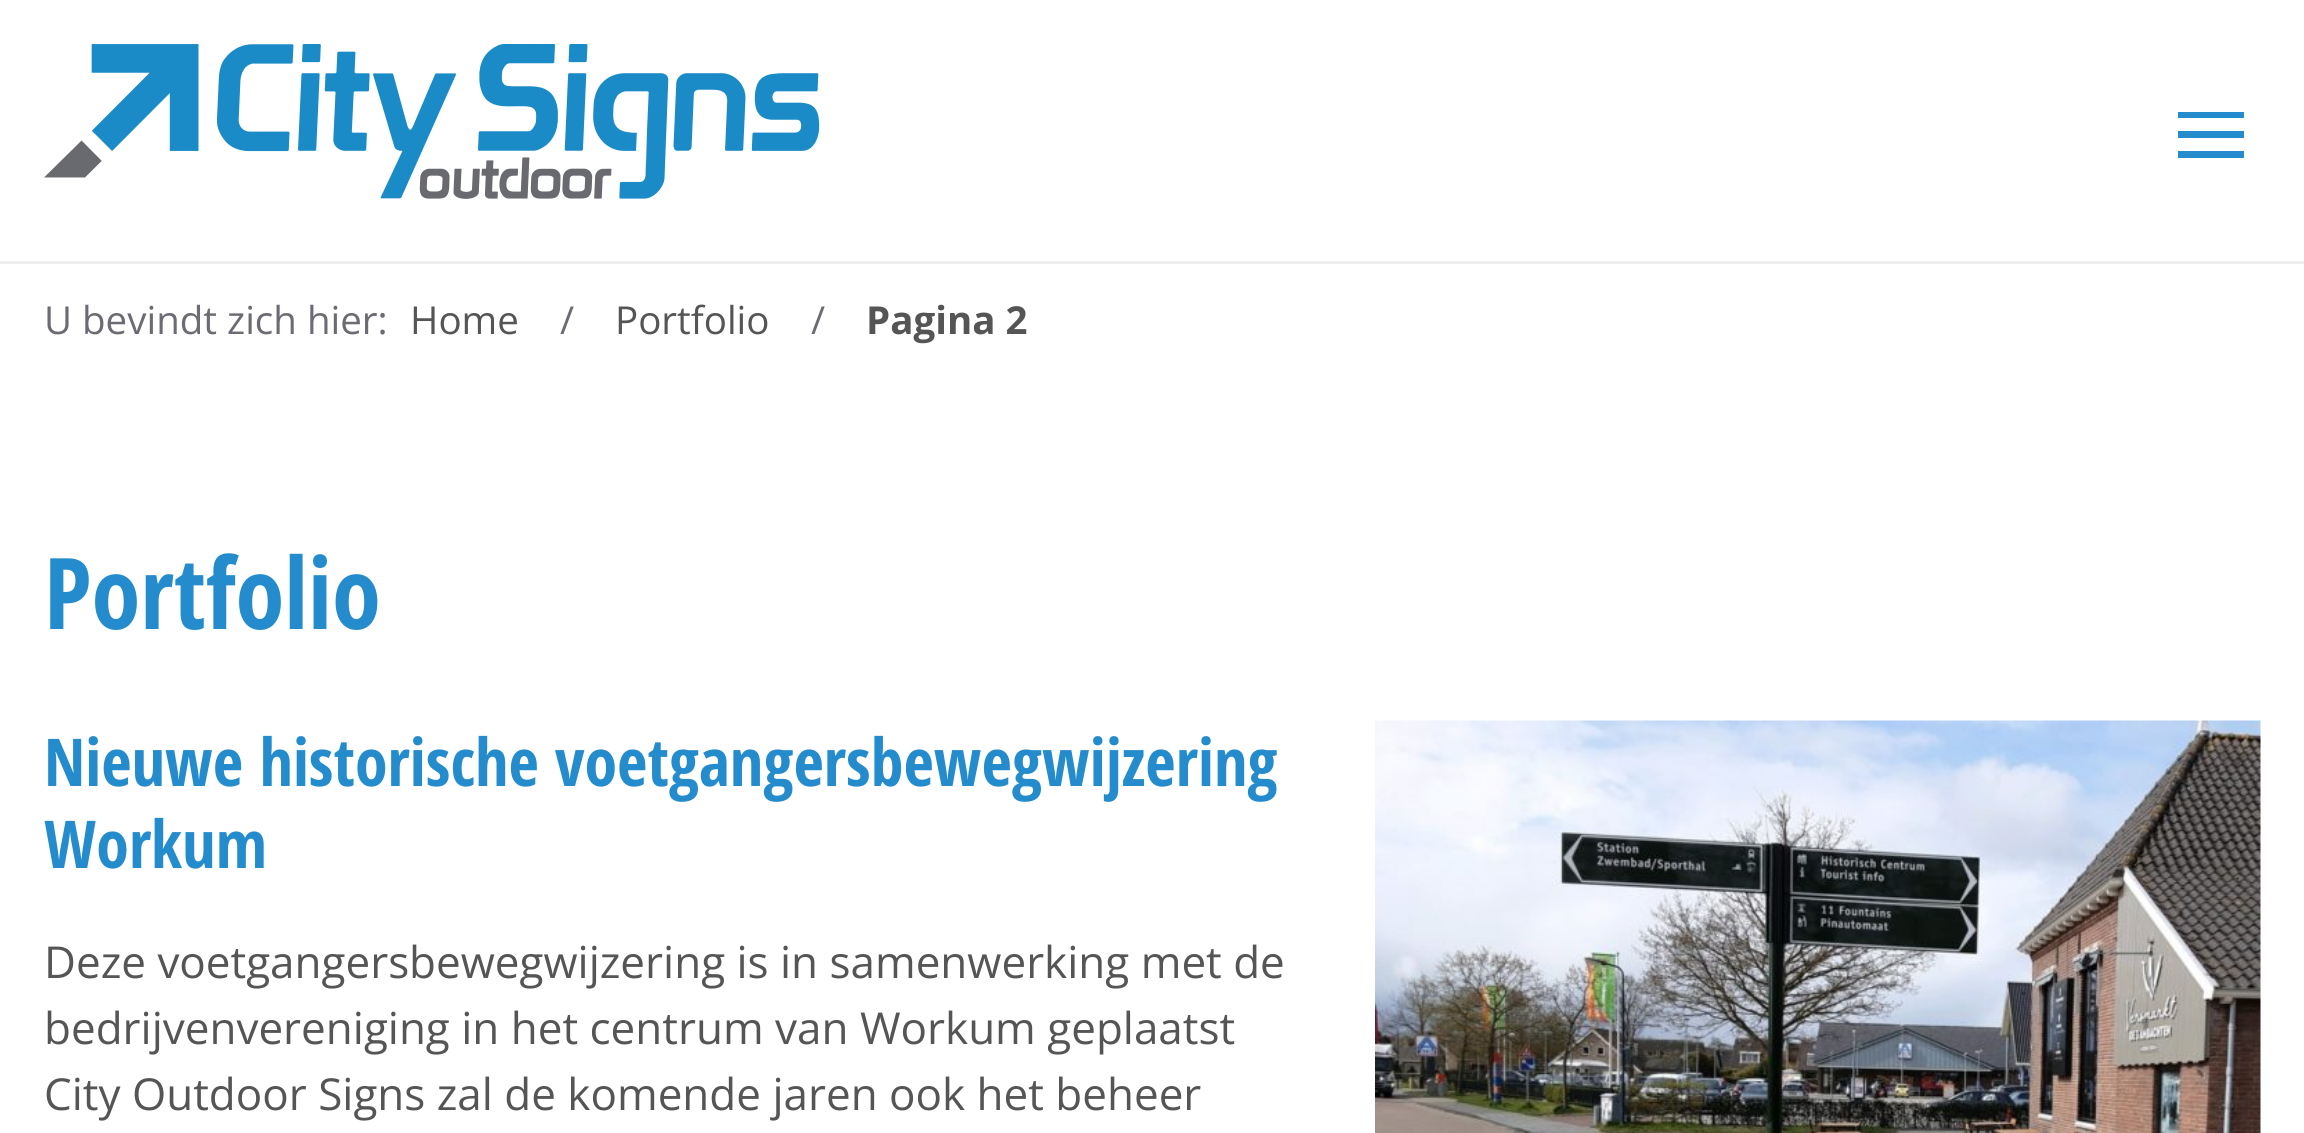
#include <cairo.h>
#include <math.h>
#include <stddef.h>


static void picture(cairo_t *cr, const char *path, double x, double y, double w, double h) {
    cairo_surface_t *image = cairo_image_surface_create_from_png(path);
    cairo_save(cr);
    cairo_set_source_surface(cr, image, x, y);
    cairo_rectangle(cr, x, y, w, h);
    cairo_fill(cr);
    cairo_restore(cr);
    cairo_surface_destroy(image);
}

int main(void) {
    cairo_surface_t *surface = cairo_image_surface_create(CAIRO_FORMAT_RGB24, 2304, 1133);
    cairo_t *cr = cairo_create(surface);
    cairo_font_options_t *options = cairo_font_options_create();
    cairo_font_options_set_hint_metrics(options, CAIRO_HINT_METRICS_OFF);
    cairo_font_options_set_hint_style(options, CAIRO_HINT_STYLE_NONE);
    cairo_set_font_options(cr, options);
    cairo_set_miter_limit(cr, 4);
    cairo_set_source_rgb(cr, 1, 1, 1);
    cairo_paint(cr);
    cairo_set_source_rgb(cr, 0.933, 0.933, 0.933);
    cairo_rectangle(cr, 0, 261, 2304, 3);
    cairo_fill(cr);
    picture(cr, "img1.png", 44, 44, 776, 155);
    cairo_set_source_rgb(cr, 0.141, 0.549, 0.8);
    cairo_new_path(cr);
    cairo_move_to(cr, 2178, 112);
    cairo_line_to(cr, 2244, 112);
    cairo_line_to(cr, 2244, 118);
    cairo_line_to(cr, 2178, 118);
    cairo_close_path(cr);
    cairo_move_to(cr, 2178, 131);
    cairo_line_to(cr, 2244, 131);
    cairo_line_to(cr, 2244, 138);
    cairo_line_to(cr, 2178, 138);
    cairo_close_path(cr);
    cairo_move_to(cr, 2178, 151);
    cairo_line_to(cr, 2244, 151);
    cairo_line_to(cr, 2244, 158);
    cairo_line_to(cr, 2178, 158);
    cairo_close_path(cr);
    cairo_fill(cr);
    cairo_select_font_face(cr, "Open Sans", CAIRO_FONT_SLANT_NORMAL, CAIRO_FONT_WEIGHT_NORMAL);
    cairo_set_font_size(cr, 38.5);
    cairo_set_source_rgb(cr, 0.42, 0.42, 0.455);
    cairo_move_to(cr, 44, 334);
    cairo_show_text(cr, "U bevindt zich hier:");
    cairo_set_source_rgb(cr, 0.333, 0.333, 0.333);
    cairo_move_to(cr, 410, 334);
    cairo_show_text(cr, "Home");
    cairo_set_source_rgb(cr, 0.42, 0.42, 0.455);
    cairo_move_to(cr, 560, 334);
    cairo_show_text(cr, "/");
    cairo_set_source_rgb(cr, 0.333, 0.333, 0.333);
    cairo_move_to(cr, 615, 334);
    cairo_show_text(cr, "Portfolio");
    cairo_set_source_rgb(cr, 0.42, 0.42, 0.455);
    cairo_move_to(cr, 811, 334);
    cairo_show_text(cr, "/");
    cairo_select_font_face(cr, "Open Sans", CAIRO_FONT_SLANT_NORMAL, CAIRO_FONT_WEIGHT_BOLD);
    cairo_set_source_rgb(cr, 0.333, 0.333, 0.333);
    cairo_move_to(cr, 866, 334);
    cairo_show_text(cr, "Pagina 2");
    cairo_select_font_face(cr, "Open Sans Condensed", CAIRO_FONT_SLANT_NORMAL, CAIRO_FONT_WEIGHT_BOLD);
    cairo_set_font_size(cr, 99);
    cairo_set_source_rgb(cr, 0.141, 0.549, 0.8);
    cairo_move_to(cr, 44, 629);
    cairo_show_text(cr, "Portfolio");
    cairo_set_font_size(cr, 66);
    cairo_move_to(cr, 44, 786);
    cairo_show_text(cr, "Nieuwe historische voetgangersbewegwijzering");
    cairo_move_to(cr, 44, 868);
    cairo_show_text(cr, "Workum");
    cairo_select_font_face(cr, "Open Sans", CAIRO_FONT_SLANT_NORMAL, CAIRO_FONT_WEIGHT_NORMAL);
    cairo_set_font_size(cr, 44);
    cairo_set_source_rgb(cr, 0.333, 0.333, 0.333);
    cairo_move_to(cr, 44, 978);
    cairo_show_text(cr, "Deze voetgangersbewegwijzering is in samenwerking met de");
    cairo_move_to(cr, 44, 1044);
    cairo_show_text(cr, "bedrijvenvereniging in het centrum van Workum geplaatst");
    cairo_move_to(cr, 44, 1110);
    cairo_show_text(cr, "City Outdoor Signs zal de komende jaren ook het beheer");
    picture(cr, "img2.png", 1375, 720, 886, 413);
    cairo_surface_write_to_png(surface, "page.png");
    cairo_font_options_destroy(options);
    cairo_destroy(cr);
    cairo_surface_destroy(surface);
    return 0;
}
